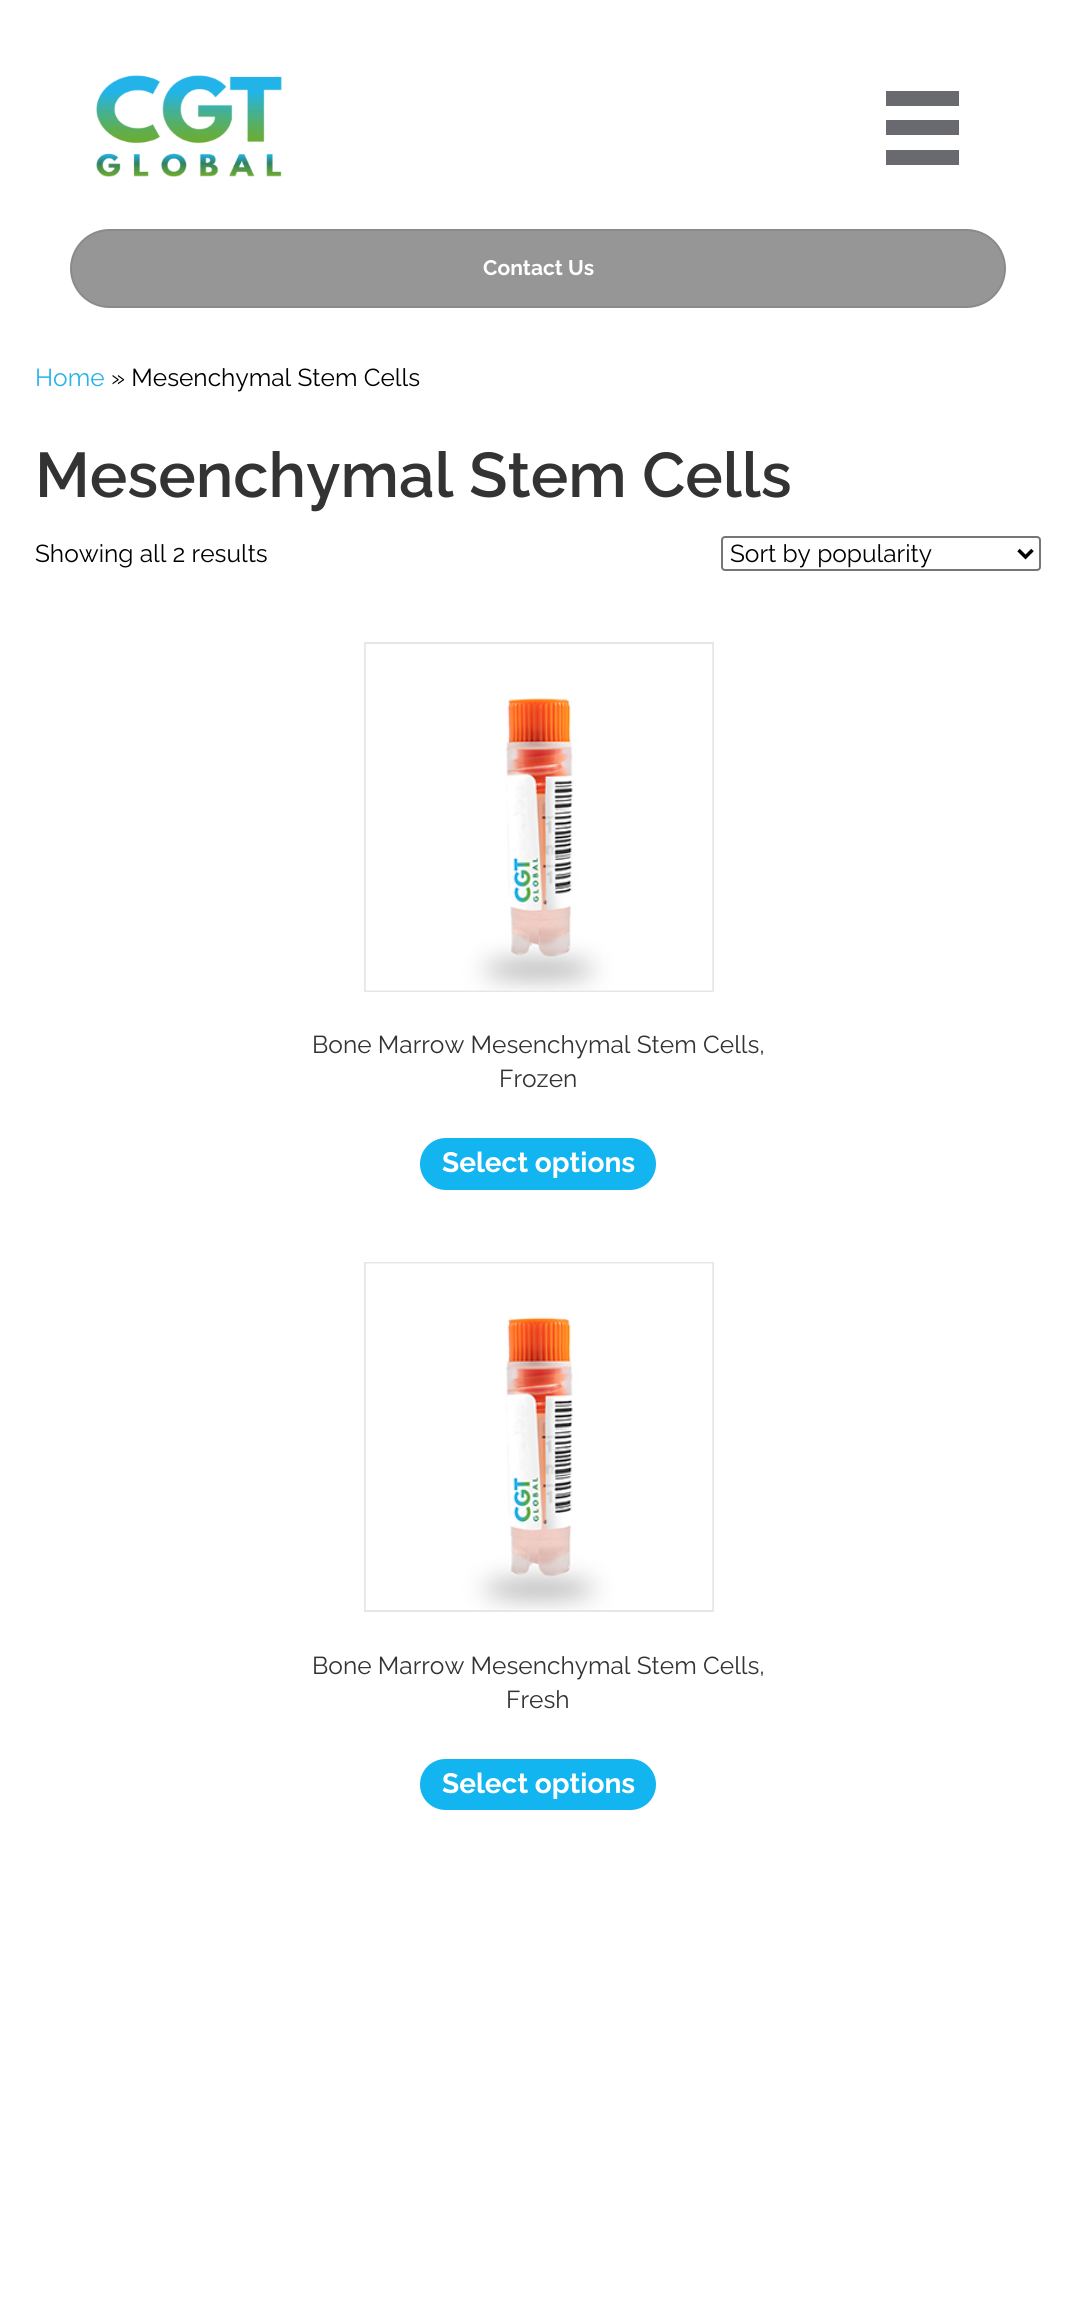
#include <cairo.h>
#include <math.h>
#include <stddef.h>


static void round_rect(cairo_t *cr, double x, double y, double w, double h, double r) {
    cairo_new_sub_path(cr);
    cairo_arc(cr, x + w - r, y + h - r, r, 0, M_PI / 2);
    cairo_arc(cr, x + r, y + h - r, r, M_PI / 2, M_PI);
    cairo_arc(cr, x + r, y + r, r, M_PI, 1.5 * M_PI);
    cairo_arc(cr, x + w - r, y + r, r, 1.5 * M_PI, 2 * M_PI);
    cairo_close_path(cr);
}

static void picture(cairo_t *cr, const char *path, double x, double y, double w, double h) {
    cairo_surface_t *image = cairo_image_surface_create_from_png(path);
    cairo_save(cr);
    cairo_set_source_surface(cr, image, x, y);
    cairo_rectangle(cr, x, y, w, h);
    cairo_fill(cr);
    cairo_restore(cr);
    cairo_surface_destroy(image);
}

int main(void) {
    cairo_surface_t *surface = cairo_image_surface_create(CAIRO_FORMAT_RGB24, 1075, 2303);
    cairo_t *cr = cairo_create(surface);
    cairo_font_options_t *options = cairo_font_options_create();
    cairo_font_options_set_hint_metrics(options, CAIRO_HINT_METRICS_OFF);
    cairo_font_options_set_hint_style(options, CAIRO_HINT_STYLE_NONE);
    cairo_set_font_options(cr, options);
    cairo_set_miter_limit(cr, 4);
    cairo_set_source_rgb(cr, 1, 1, 1);
    cairo_paint(cr);
    picture(cr, "img1.png", 96, 75, 186, 102);
    cairo_set_source_rgb(cr, 0.408, 0.416, 0.435);
    cairo_rectangle(cr, 886, 91, 73, 15);
    cairo_fill(cr);
    cairo_rectangle(cr, 886, 120, 73, 15);
    cairo_fill(cr);
    cairo_rectangle(cr, 886, 150, 73, 15);
    cairo_fill(cr);
    cairo_set_source_rgb(cr, 0.588, 0.588, 0.588);
    round_rect(cr, 71, 230, 934, 77, 38.5);
    cairo_fill_preserve(cr);
    cairo_set_source_rgb(cr, 0.541, 0.541, 0.541);
    cairo_stroke(cr);
    cairo_select_font_face(cr, "Raleway", CAIRO_FONT_SLANT_NORMAL, CAIRO_FONT_WEIGHT_BOLD);
    cairo_set_font_size(cr, 21);
    cairo_set_source_rgb(cr, 1, 1, 1);
    cairo_move_to(cr, 483, 275);
    cairo_show_text(cr, "Contact Us");
    cairo_select_font_face(cr, "Raleway Thin", CAIRO_FONT_SLANT_NORMAL, CAIRO_FONT_WEIGHT_NORMAL);
    cairo_set_font_size(cr, 24.5);
    cairo_set_source_rgb(cr, 0.153, 0.702, 0.91);
    cairo_move_to(cr, 35, 386);
    cairo_show_text(cr, "Home");
    cairo_set_source_rgb(cr, 0, 0, 0);
    cairo_move_to(cr, 111, 386);
    cairo_show_text(cr, "» Mesenchymal Stem Cells");
    cairo_select_font_face(cr, "Raleway SemiBold", CAIRO_FONT_SLANT_NORMAL, CAIRO_FONT_WEIGHT_NORMAL);
    cairo_set_font_size(cr, 63);
    cairo_set_source_rgb(cr, 0.2, 0.2, 0.2);
    cairo_move_to(cr, 35, 497);
    cairo_show_text(cr, "Mesenchymal Stem Cells");
    cairo_select_font_face(cr, "Raleway Thin", CAIRO_FONT_SLANT_NORMAL, CAIRO_FONT_WEIGHT_NORMAL);
    cairo_set_font_size(cr, 24.5);
    cairo_set_source_rgb(cr, 0, 0, 0);
    cairo_move_to(cr, 35, 562);
    cairo_show_text(cr, "Showing all 2 results");
    round_rect(cr, 722, 537, 318, 33, 3);
    cairo_set_source_rgb(cr, 0.463, 0.463, 0.463);
    cairo_stroke(cr);
    cairo_new_path(cr);
    cairo_move_to(cr, 1018.5, 550);
    cairo_line_to(cr, 1025.5, 557);
    cairo_line_to(cr, 1032.5, 550);
    cairo_set_source_rgb(cr, 0, 0, 0);
    cairo_set_line_width(cr, 3.5);
    cairo_stroke(cr);
    cairo_move_to(cr, 730, 562);
    cairo_show_text(cr, "Sort by popularity");
    cairo_rectangle(cr, 365, 643, 348, 348);
    cairo_set_source_rgb(cr, 0.902, 0.902, 0.902);
    cairo_set_line_width(cr, 2);
    cairo_stroke(cr);
    picture(cr, "img2.png", 365, 644, 348, 347);
    cairo_set_source_rgb(cr, 0.2, 0.2, 0.2);
    cairo_move_to(cr, 312, 1053);
    cairo_show_text(cr, "Bone Marrow Mesenchymal Stem Cells,");
    cairo_move_to(cr, 499, 1087);
    cairo_show_text(cr, "Frozen");
    cairo_set_source_rgb(cr, 0.071, 0.71, 0.937);
    round_rect(cr, 420, 1138, 236, 52, 26);
    cairo_fill(cr);
    cairo_select_font_face(cr, "Raleway", CAIRO_FONT_SLANT_NORMAL, CAIRO_FONT_WEIGHT_BOLD);
    cairo_set_font_size(cr, 28);
    cairo_set_source_rgb(cr, 1, 1, 1);
    cairo_move_to(cr, 442, 1172);
    cairo_show_text(cr, "Select options");
    cairo_rectangle(cr, 365, 1263, 348, 348);
    cairo_set_source_rgb(cr, 0.902, 0.902, 0.902);
    cairo_stroke(cr);
    picture(cr, "img3.png", 365, 1263, 348, 347);
    cairo_select_font_face(cr, "Raleway Thin", CAIRO_FONT_SLANT_NORMAL, CAIRO_FONT_WEIGHT_NORMAL);
    cairo_set_font_size(cr, 24.5);
    cairo_set_source_rgb(cr, 0.2, 0.2, 0.2);
    cairo_move_to(cr, 312, 1674);
    cairo_show_text(cr, "Bone Marrow Mesenchymal Stem Cells,");
    cairo_move_to(cr, 506, 1708);
    cairo_show_text(cr, "Fresh");
    cairo_set_source_rgb(cr, 0.071, 0.71, 0.937);
    round_rect(cr, 420, 1759, 236, 51, 25.5);
    cairo_fill(cr);
    cairo_select_font_face(cr, "Raleway", CAIRO_FONT_SLANT_NORMAL, CAIRO_FONT_WEIGHT_BOLD);
    cairo_set_font_size(cr, 28);
    cairo_set_source_rgb(cr, 1, 1, 1);
    cairo_move_to(cr, 442, 1793);
    cairo_show_text(cr, "Select options");
    cairo_surface_write_to_png(surface, "page.png");
    cairo_font_options_destroy(options);
    cairo_destroy(cr);
    cairo_surface_destroy(surface);
    return 0;
}
